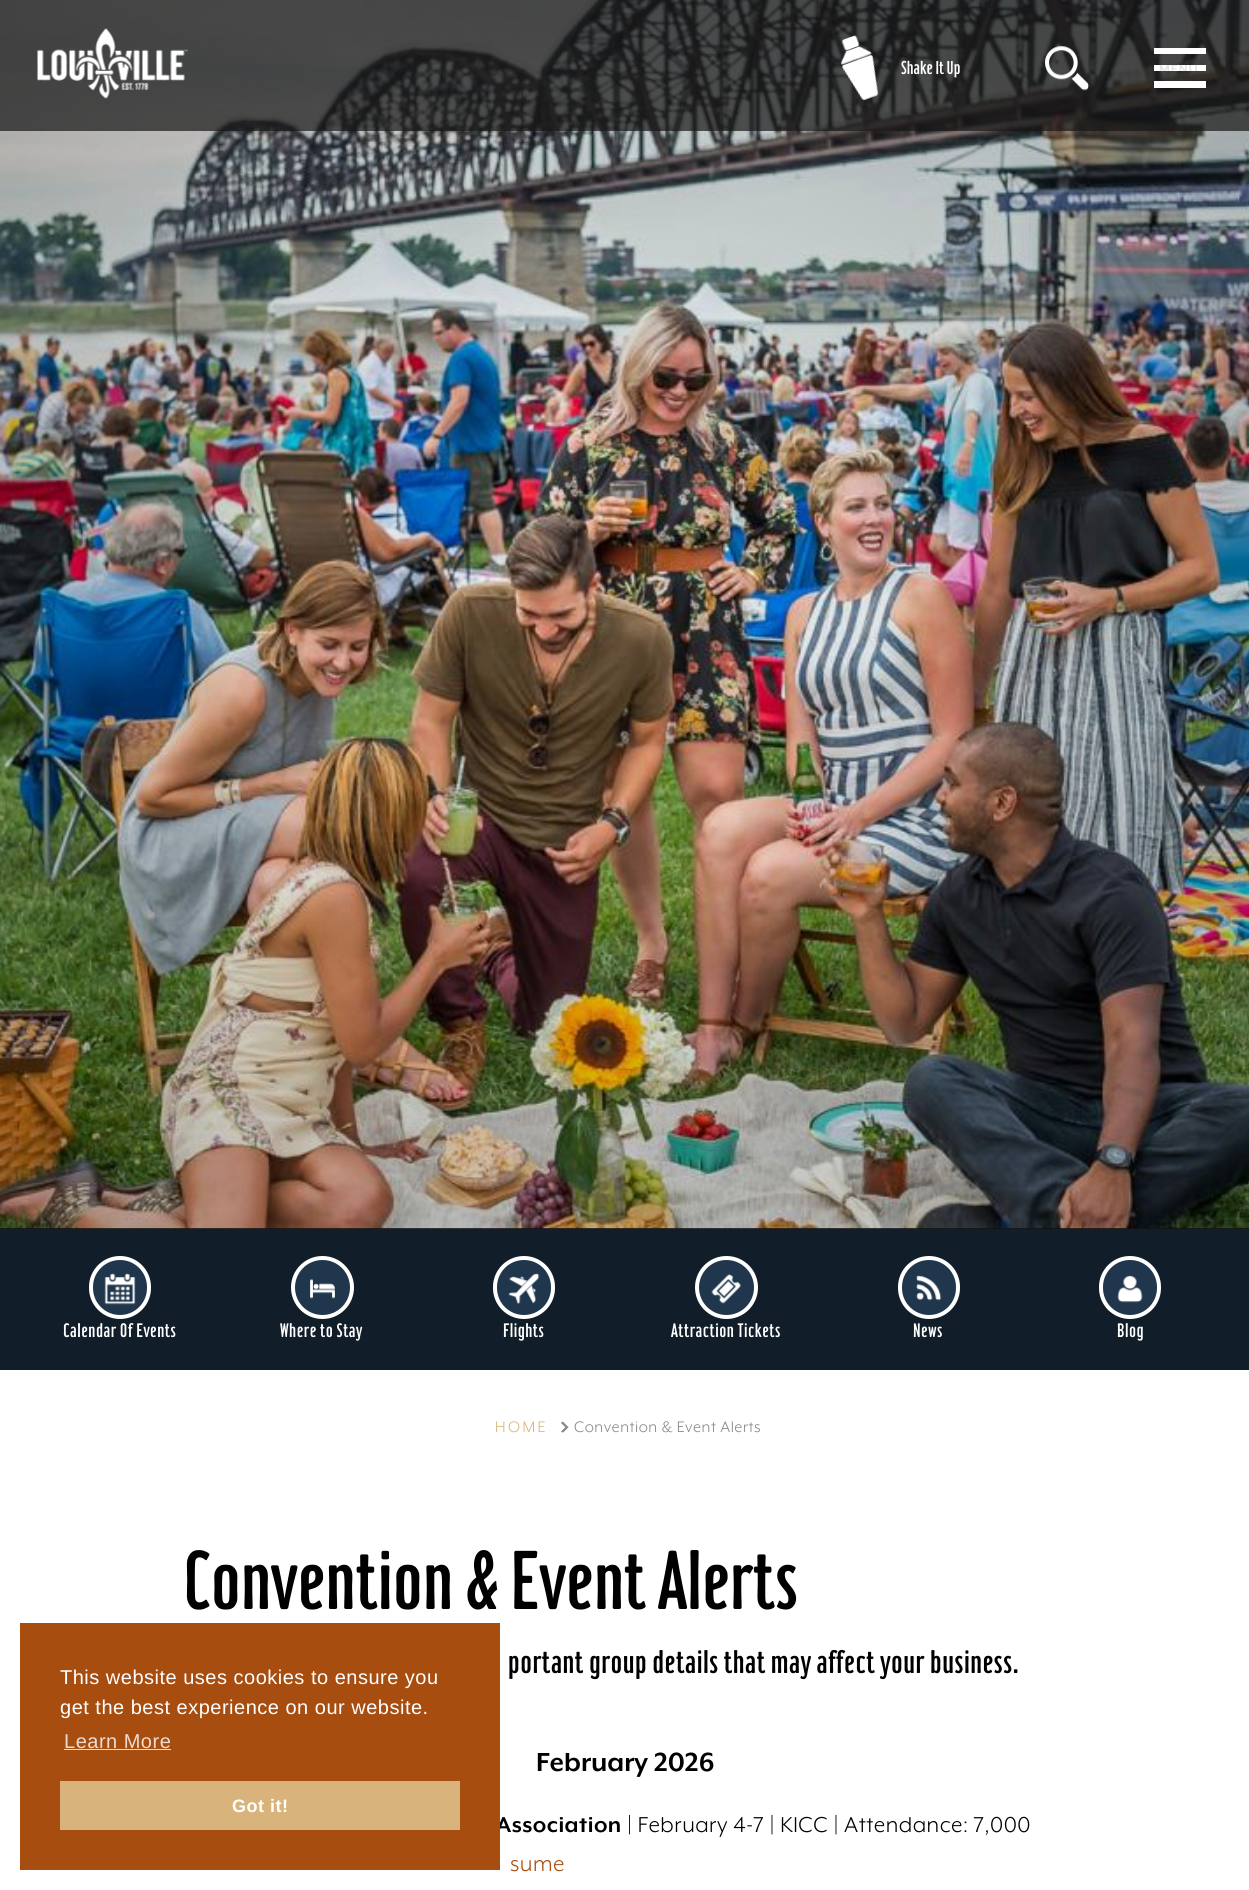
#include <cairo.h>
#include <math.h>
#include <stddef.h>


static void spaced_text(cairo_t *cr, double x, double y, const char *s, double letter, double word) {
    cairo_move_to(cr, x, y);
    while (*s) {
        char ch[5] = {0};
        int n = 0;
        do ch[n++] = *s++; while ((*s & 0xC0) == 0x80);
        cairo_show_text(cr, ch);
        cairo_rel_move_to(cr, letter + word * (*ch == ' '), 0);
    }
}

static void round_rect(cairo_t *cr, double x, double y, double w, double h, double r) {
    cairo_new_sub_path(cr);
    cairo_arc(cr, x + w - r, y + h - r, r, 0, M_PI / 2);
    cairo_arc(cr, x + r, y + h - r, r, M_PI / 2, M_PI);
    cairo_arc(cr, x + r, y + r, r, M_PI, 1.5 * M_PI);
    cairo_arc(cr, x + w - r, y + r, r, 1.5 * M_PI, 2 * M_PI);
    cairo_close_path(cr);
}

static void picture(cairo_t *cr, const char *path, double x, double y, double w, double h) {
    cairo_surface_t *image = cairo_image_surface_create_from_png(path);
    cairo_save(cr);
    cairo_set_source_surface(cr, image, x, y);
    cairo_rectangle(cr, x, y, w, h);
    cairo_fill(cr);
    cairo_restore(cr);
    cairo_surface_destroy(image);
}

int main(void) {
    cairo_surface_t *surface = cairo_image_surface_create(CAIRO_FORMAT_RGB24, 1249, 1890);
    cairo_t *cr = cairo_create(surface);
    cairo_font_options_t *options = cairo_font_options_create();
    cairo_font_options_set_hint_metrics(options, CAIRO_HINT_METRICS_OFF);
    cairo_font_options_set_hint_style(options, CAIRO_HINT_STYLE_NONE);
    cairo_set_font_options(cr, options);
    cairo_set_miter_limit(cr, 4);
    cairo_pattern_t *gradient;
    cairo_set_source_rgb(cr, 1, 1, 1);
    cairo_paint(cr);
    cairo_set_source_rgb(cr, 0.094, 0.094, 0.094);
    cairo_rectangle(cr, 0, 1228, 1249, 1);
    cairo_fill(cr);
    picture(cr, "img4.png", 0, 0, 1249, 1229);
    gradient = cairo_pattern_create_radial(0, 0, 0, 0, 0, 1);
    cairo_pattern_set_matrix(gradient, &(cairo_matrix_t){1.0 / 3125, 0, 0, 1.0 / 3072, -1.0 * 625 / 3125, -1.0 * 614 / 3072});
    cairo_pattern_add_color_stop_rgba(gradient, 0, 0, 0, 0, 0);
    cairo_pattern_add_color_stop_rgba(gradient, 1, 0, 0, 0, 1);
    cairo_set_source(cr, gradient);
    cairo_pattern_destroy(gradient);
    cairo_rectangle(cr, 0, 0, 1249, 1229);
    cairo_fill(cr);
    cairo_set_source_rgba(cr, 0.094, 0.094, 0.094, 0.7);
    cairo_rectangle(cr, 0, 0, 1249, 131);
    cairo_fill(cr);
    picture(cr, "img1.png", 37, 28, 151, 71);
    picture(cr, "img2.png", 840, 35, 39, 66);
    cairo_select_font_face(cr, "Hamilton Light", CAIRO_FONT_SLANT_NORMAL, CAIRO_FONT_WEIGHT_NORMAL);
    cairo_set_font_size(cr, 20);
    cairo_set_source_rgb(cr, 1, 1, 1);
    cairo_move_to(cr, 901, 74);
    cairo_show_text(cr, "Shake It Up");
    picture(cr, "img3.png", 1045, 46, 44, 45);
    cairo_rectangle(cr, 1154, 48, 52, 6);
    cairo_fill(cr);
    cairo_rectangle(cr, 1154, 65, 52, 6);
    cairo_fill(cr);
    cairo_save(cr);
    cairo_new_path(cr);
    cairo_move_to(cr, 1147.5, 65);
    cairo_line_to(cr, 1212.5, 65);
    cairo_line_to(cr, 1212.5, 71);
    cairo_line_to(cr, 1147.5, 71);
    cairo_close_path(cr);
    cairo_clip(cr);
    cairo_select_font_face(cr, "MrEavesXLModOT", CAIRO_FONT_SLANT_NORMAL, CAIRO_FONT_WEIGHT_BOLD);
    cairo_set_font_size(cr, 14);
    cairo_set_source_rgb(cr, 0.886, 0.886, 0.882);
    spaced_text(cr, 1159, 73, "MENU", 1, 0);
    cairo_restore(cr);
    cairo_rectangle(cr, 1154, 81, 52, 7);
    cairo_fill(cr);
    cairo_set_source_rgb(cr, 0.067, 0.114, 0.157);
    cairo_rectangle(cr, 0, 1229, 1249, 141);
    cairo_fill(cr);
    cairo_set_source_rgb(cr, 0.125, 0.212, 0.298);
    round_rect(cr, 91, 1258, 58, 59, 29);
    cairo_fill_preserve(cr);
    cairo_set_source_rgb(cr, 1, 1, 1);
    cairo_set_line_width(cr, 4);
    cairo_stroke(cr);
    picture(cr, "img5.png", 104, 1273, 32, 32);
    cairo_set_font_size(cr, 21);
    spaced_text(cr, 63, 1337, "Calendar Of Events", 0.5, 0);
    cairo_set_source_rgb(cr, 0.125, 0.212, 0.298);
    cairo_new_path(cr);
    cairo_arc(cr, 322.5, 1287.5, 29.5, 0, 2 * M_PI);
    cairo_fill_preserve(cr);
    cairo_set_source_rgb(cr, 1, 1, 1);
    cairo_stroke(cr);
    picture(cr, "img6.png", 310, 1279, 25, 20);
    spaced_text(cr, 280, 1337, "Where to Stay", 0.5, 0);
    cairo_set_source_rgb(cr, 0.125, 0.212, 0.298);
    round_rect(cr, 495, 1258, 58, 59, 29);
    cairo_fill_preserve(cr);
    cairo_set_source_rgb(cr, 1, 1, 1);
    cairo_stroke(cr);
    picture(cr, "img7.png", 508, 1273, 32, 31);
    spaced_text(cr, 503, 1337, "Flights", 0.5, 0);
    cairo_set_source_rgb(cr, 0.125, 0.212, 0.298);
    cairo_new_path(cr);
    cairo_arc(cr, 726.5, 1287.5, 29.5, 0, 2 * M_PI);
    cairo_fill_preserve(cr);
    cairo_set_source_rgb(cr, 1, 1, 1);
    cairo_stroke(cr);
    picture(cr, "img8.png", 711, 1274, 30, 30);
    spaced_text(cr, 671, 1337, "Attraction Tickets", 0.5, 0);
    cairo_set_source_rgb(cr, 0.125, 0.212, 0.298);
    round_rect(cr, 900, 1258, 58, 59, 29);
    cairo_fill_preserve(cr);
    cairo_set_source_rgb(cr, 1, 1, 1);
    cairo_stroke(cr);
    picture(cr, "img9.png", 916, 1275, 26, 26);
    spaced_text(cr, 913, 1337, "News", 0.5, 0);
    cairo_set_source_rgb(cr, 0.125, 0.212, 0.298);
    round_rect(cr, 1101, 1258, 58, 59, 29);
    cairo_fill_preserve(cr);
    cairo_set_source_rgb(cr, 1, 1, 1);
    cairo_stroke(cr);
    picture(cr, "img10.png", 1117, 1275, 26, 28);
    spaced_text(cr, 1117, 1337, "Blog", 0.5, 0);
    cairo_select_font_face(cr, "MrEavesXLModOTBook", CAIRO_FONT_SLANT_NORMAL, CAIRO_FONT_WEIGHT_NORMAL);
    cairo_set_font_size(cr, 17.5);
    cairo_set_source_rgb(cr, 0.847, 0.706, 0.486);
    spaced_text(cr, 495, 1432, "HOME", 2.5, 0);
    picture(cr, "img11.png", 561, 1421, 8, 12);
    cairo_set_source_rgb(cr, 0.533, 0.533, 0.533);
    spaced_text(cr, 574, 1432, "Convention & Event Alerts", 0.5, 0);
    cairo_select_font_face(cr, "Hamilton Light", CAIRO_FONT_SLANT_NORMAL, CAIRO_FONT_WEIGHT_NORMAL);
    cairo_set_font_size(cr, 89.5);
    cairo_set_source_rgb(cr, 0, 0, 0);
    cairo_move_to(cr, 183, 1609);
    cairo_show_text(cr, "Convention & Event Alerts");
    cairo_set_font_size(cr, 34.8);
    spaced_text(cr, 508, 1673, "portant group details that may affect your business.", 0.5, 0);
    cairo_select_font_face(cr, "MrEavesXLModOT", CAIRO_FONT_SLANT_NORMAL, CAIRO_FONT_WEIGHT_BOLD);
    cairo_set_font_size(cr, 30);
    cairo_move_to(cr, 536, 1771);
    cairo_show_text(cr, "February 2026");
    cairo_set_font_size(cr, 24.8);
    spaced_text(cr, 496, 1832, "Association", 0.5, 0);
    cairo_select_font_face(cr, "MrEavesXLModOTBook", CAIRO_FONT_SLANT_NORMAL, CAIRO_FONT_WEIGHT_NORMAL);
    spaced_text(cr, 627, 1832, "| February 4-7 | KICC | Attendance: 7,000", 0.5, 0);
    cairo_set_source_rgb(cr, 0.659, 0.302, 0.063);
    spaced_text(cr, 510, 1871, "sume", 0.5, 0);
    cairo_rectangle(cr, 20, 1623, 480, 247);
    cairo_fill(cr);
    cairo_select_font_face(cr, "Liberation Sans", CAIRO_FONT_SLANT_NORMAL, CAIRO_FONT_WEIGHT_NORMAL);
    cairo_set_font_size(cr, 20);
    cairo_set_source_rgb(cr, 1, 1, 1);
    spaced_text(cr, 60, 1684, "This website uses cookies to ensure you", 0.5, 0);
    spaced_text(cr, 60, 1714, "get the best experience on our website.", 0.5, 0);
    cairo_set_source_rgb(cr, 0.933, 0.859, 0.812);
    spaced_text(cr, 64, 1748, "Learn More", 0.5, 0);
    cairo_rectangle(cr, 64, 1749, 107, 1);
    cairo_fill(cr);
    cairo_set_source_rgb(cr, 0.847, 0.706, 0.486);
    cairo_rectangle(cr, 60, 1781, 400, 49);
    cairo_fill(cr);
    cairo_select_font_face(cr, "Liberation Sans", CAIRO_FONT_SLANT_NORMAL, CAIRO_FONT_WEIGHT_BOLD);
    cairo_set_font_size(cr, 18);
    cairo_set_source_rgb(cr, 1, 1, 1);
    spaced_text(cr, 232, 1812, "Got it!", 0.5, 0);
    cairo_surface_write_to_png(surface, "page.png");
    cairo_font_options_destroy(options);
    cairo_destroy(cr);
    cairo_surface_destroy(surface);
    return 0;
}
